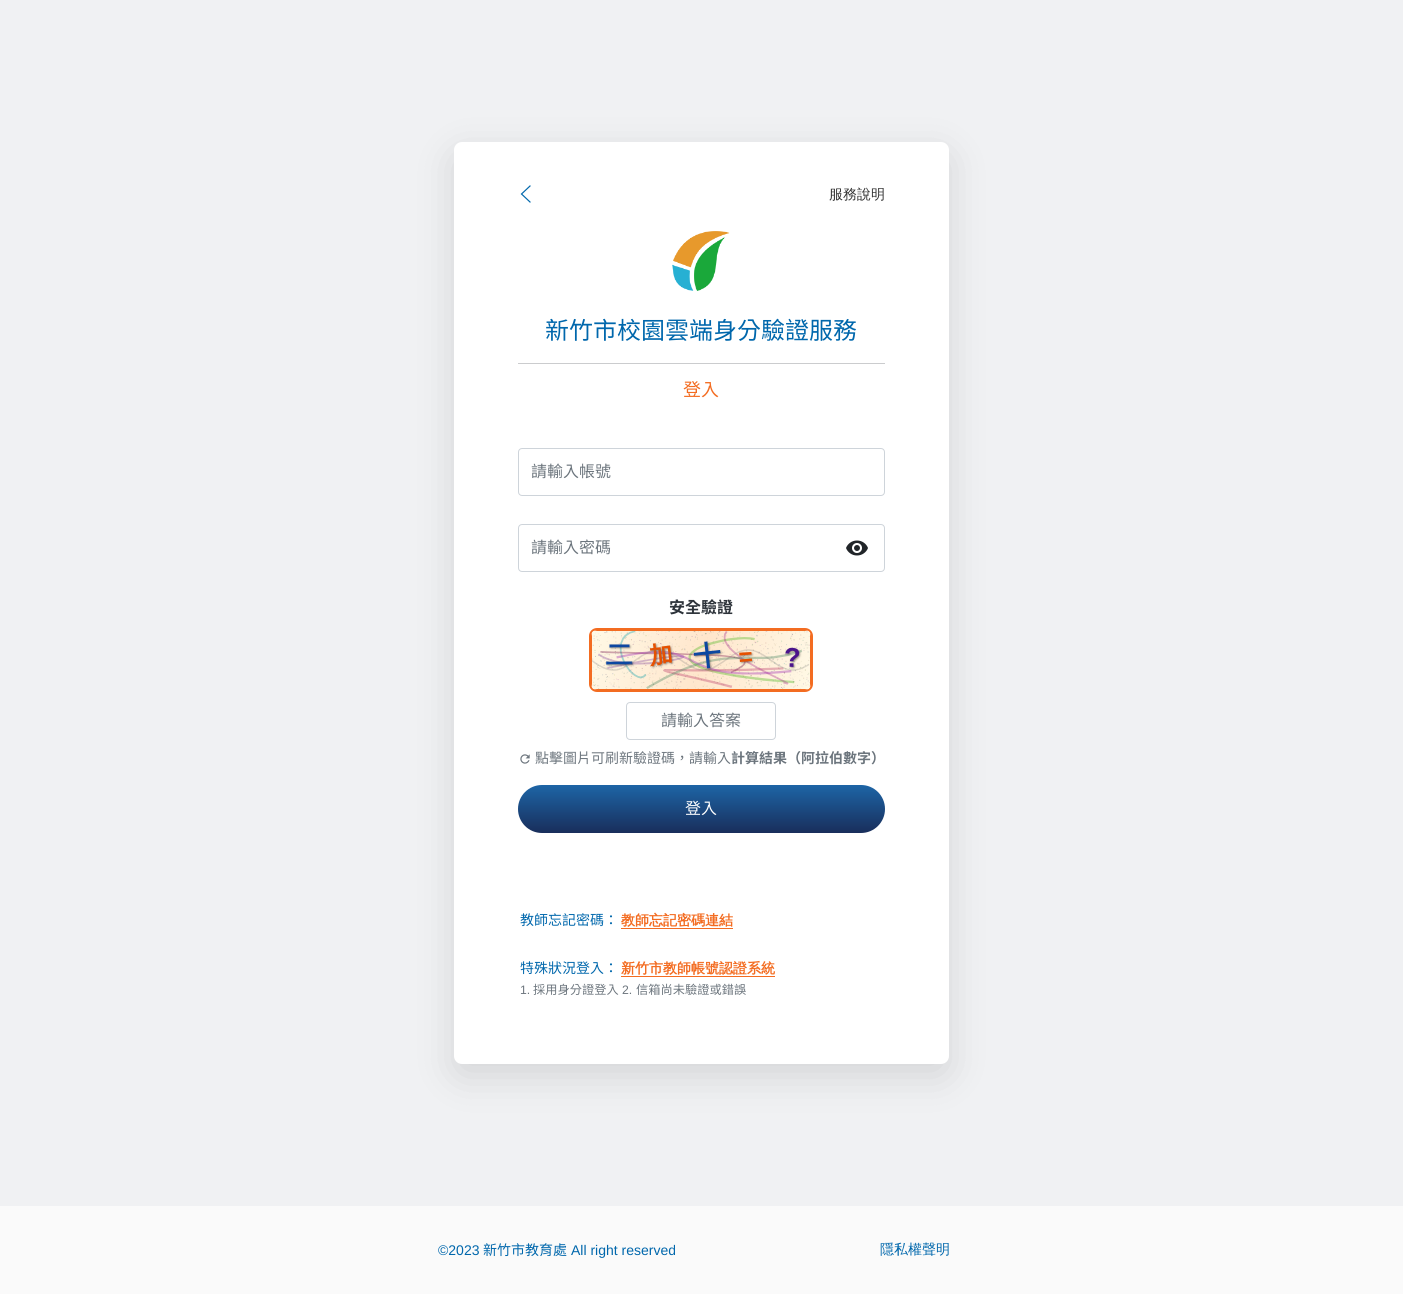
#include <cairo.h>
#include <math.h>
#include <stddef.h>


static void round_rect(cairo_t *cr, double x, double y, double w, double h, double r) {
    cairo_new_sub_path(cr);
    cairo_arc(cr, x + w - r, y + h - r, r, 0, M_PI / 2);
    cairo_arc(cr, x + r, y + h - r, r, M_PI / 2, M_PI);
    cairo_arc(cr, x + r, y + r, r, M_PI, 1.5 * M_PI);
    cairo_arc(cr, x + w - r, y + r, r, 1.5 * M_PI, 2 * M_PI);
    cairo_close_path(cr);
}

static void shadow(cairo_t *cr, double x, double y, double w, double h, double r, double blur, double alpha) {
    cairo_push_group_with_content(cr, CAIRO_CONTENT_ALPHA);
    cairo_set_operator(cr, CAIRO_OPERATOR_SOURCE);
    for (int i = 15; i >= -15 && fmin(w, h) + blur * i / 3 > 0; i -= 2) {
        double e = blur * i / 6;
        cairo_set_source_rgba(cr, 0, 0, 0, alpha * erfc((i - 1) / 8.5) / 2);
        round_rect(cr, x - e, y - e, w + 2 * e, h + 2 * e, fmax(0, fmin(r + e + blur * .6, fmin(w, h) / 2 + e)));
        cairo_fill(cr);
    }
    cairo_pattern_t *soft = cairo_pop_group(cr);
    cairo_mask(cr, soft);
    cairo_pattern_destroy(soft);
}

static void picture(cairo_t *cr, const char *path, double x, double y, double w, double h) {
    cairo_surface_t *image = cairo_image_surface_create_from_png(path);
    cairo_save(cr);
    cairo_set_source_surface(cr, image, x, y);
    cairo_rectangle(cr, x, y, w, h);
    cairo_fill(cr);
    cairo_restore(cr);
    cairo_surface_destroy(image);
}

int main(void) {
    cairo_surface_t *surface = cairo_image_surface_create(CAIRO_FORMAT_RGB24, 1403, 1294);
    cairo_t *cr = cairo_create(surface);
    cairo_font_options_t *options = cairo_font_options_create();
    cairo_font_options_set_hint_metrics(options, CAIRO_HINT_METRICS_OFF);
    cairo_font_options_set_hint_style(options, CAIRO_HINT_STYLE_NONE);
    cairo_set_font_options(cr, options);
    cairo_set_miter_limit(cr, 4);
    cairo_pattern_t *gradient;
    cairo_set_source_rgb(cr, 0.941, 0.945, 0.953);
    cairo_paint(cr);
    cairo_set_source_rgb(cr, 0, 0, 0);
    shadow(cr, 454, 154, 495, 922, 8, 20, 0.12);
    cairo_set_source_rgb(cr, 1, 1, 1);
    round_rect(cr, 454, 142, 495, 922, 8);
    cairo_fill(cr);
    cairo_new_path(cr);
    cairo_move_to(cr, 530, 202);
    cairo_line_to(cr, 521.5, 194);
    cairo_line_to(cr, 530, 186);
    cairo_set_source_rgb(cr, 0, 0.404, 0.675);
    cairo_set_line_width(cr, 1.2);
    cairo_set_line_cap(cr, CAIRO_LINE_CAP_SQUARE);
    cairo_stroke(cr);
    cairo_select_font_face(cr, "WenQuanYi Zen Hei Medium", CAIRO_FONT_SLANT_NORMAL, CAIRO_FONT_WEIGHT_NORMAL);
    cairo_set_font_size(cr, 14);
    cairo_set_source_rgb(cr, 0.2, 0.2, 0.2);
    cairo_move_to(cr, 829, 199);
    cairo_show_text(cr, "服務說明");
    picture(cr, "img1.png", 672, 231, 58, 60);
    cairo_select_font_face(cr, "Noto Sans TC", CAIRO_FONT_SLANT_NORMAL, CAIRO_FONT_WEIGHT_NORMAL);
    cairo_set_font_size(cr, 24);
    cairo_set_source_rgb(cr, 0, 0.404, 0.675);
    cairo_move_to(cr, 545, 339);
    cairo_show_text(cr, "新竹市校園雲端身分驗證服務");
    cairo_set_source_rgb(cr, 0.796, 0.8, 0.808);
    cairo_rectangle(cr, 518, 363, 367, 1);
    cairo_fill(cr);
    cairo_set_font_size(cr, 18);
    cairo_set_source_rgb(cr, 0.953, 0.424, 0.129);
    cairo_move_to(cr, 683, 396);
    cairo_show_text(cr, "登入");
    round_rect(cr, 518.5, 448.5, 366, 47, 3.5);
    cairo_set_source_rgb(cr, 0.808, 0.831, 0.855);
    cairo_set_line_width(cr, 1);
    cairo_set_line_cap(cr, CAIRO_LINE_CAP_BUTT);
    cairo_stroke(cr);
    cairo_set_font_size(cr, 16);
    cairo_set_source_rgb(cr, 0.424, 0.459, 0.49);
    cairo_move_to(cr, 531, 477);
    cairo_show_text(cr, "請輸入帳號");
    round_rect(cr, 518.5, 524.5, 366, 47, 3.5);
    cairo_set_source_rgb(cr, 0.808, 0.831, 0.855);
    cairo_stroke(cr);
    cairo_set_source_rgb(cr, 0.424, 0.459, 0.49);
    cairo_move_to(cr, 531, 553);
    cairo_show_text(cr, "請輸入密碼");
    picture(cr, "img2.png", 846, 540, 22, 16);
    cairo_select_font_face(cr, "Noto Sans TC", CAIRO_FONT_SLANT_NORMAL, CAIRO_FONT_WEIGHT_BOLD);
    cairo_set_source_rgb(cr, 0.176, 0.2, 0.227);
    cairo_move_to(cr, 669, 613);
    cairo_show_text(cr, "安全驗證");
    round_rect(cr, 590, 629, 222, 62, 7);
    cairo_set_source_rgb(cr, 0.953, 0.424, 0.129);
    cairo_set_line_width(cr, 2);
    cairo_stroke(cr);
    picture(cr, "img3.png", 591, 630, 220, 60);
    round_rect(cr, 626.5, 702.5, 149, 37, 3.5);
    cairo_set_source_rgb(cr, 0.808, 0.831, 0.855);
    cairo_set_line_width(cr, 1);
    cairo_stroke(cr);
    cairo_select_font_face(cr, "Noto Sans TC", CAIRO_FONT_SLANT_NORMAL, CAIRO_FONT_WEIGHT_NORMAL);
    cairo_set_source_rgb(cr, 0.424, 0.459, 0.49);
    cairo_move_to(cr, 661, 726);
    cairo_show_text(cr, "請輸入答案");
    picture(cr, "img4.png", 520, 754, 10, 10);
    cairo_set_font_size(cr, 14);
    cairo_move_to(cr, 535, 763);
    cairo_show_text(cr, "點擊圖片可刷新驗證碼，請輸入");
    cairo_select_font_face(cr, "Noto Sans TC", CAIRO_FONT_SLANT_NORMAL, CAIRO_FONT_WEIGHT_BOLD);
    cairo_move_to(cr, 731, 763);
    cairo_show_text(cr, "計算結果（阿拉伯數字）");
    gradient = cairo_pattern_create_linear(702, 833, 702, 785);
    cairo_pattern_add_color_stop_rgba(gradient, 0, 0.098, 0.18, 0.357, 1);
    cairo_pattern_add_color_stop_rgba(gradient, 1, 0.114, 0.396, 0.651, 1);
    cairo_set_source(cr, gradient);
    cairo_pattern_destroy(gradient);
    round_rect(cr, 518, 785, 367, 48, 24);
    cairo_fill(cr);
    cairo_select_font_face(cr, "Noto Sans TC", CAIRO_FONT_SLANT_NORMAL, CAIRO_FONT_WEIGHT_NORMAL);
    cairo_set_font_size(cr, 16);
    cairo_set_source_rgb(cr, 1, 1, 1);
    cairo_move_to(cr, 685, 814);
    cairo_show_text(cr, "登入");
    cairo_set_font_size(cr, 14);
    cairo_set_source_rgb(cr, 0, 0.404, 0.675);
    cairo_move_to(cr, 520, 925);
    cairo_show_text(cr, "教師忘記密碼：");
    cairo_select_font_face(cr, "WenQuanYi Zen Hei", CAIRO_FONT_SLANT_NORMAL, CAIRO_FONT_WEIGHT_BOLD);
    cairo_set_source_rgb(cr, 0.953, 0.424, 0.129);
    cairo_move_to(cr, 621, 925);
    cairo_show_text(cr, "教師忘記密碼連結");
    cairo_rectangle(cr, 621, 928, 112, 1);
    cairo_fill(cr);
    cairo_select_font_face(cr, "Noto Sans TC", CAIRO_FONT_SLANT_NORMAL, CAIRO_FONT_WEIGHT_NORMAL);
    cairo_set_source_rgb(cr, 0, 0.404, 0.675);
    cairo_move_to(cr, 520, 973);
    cairo_show_text(cr, "特殊狀況登入：");
    cairo_select_font_face(cr, "WenQuanYi Zen Hei", CAIRO_FONT_SLANT_NORMAL, CAIRO_FONT_WEIGHT_BOLD);
    cairo_set_source_rgb(cr, 0.953, 0.424, 0.129);
    cairo_move_to(cr, 621, 973);
    cairo_show_text(cr, "新竹市教師帳號認證系統");
    cairo_rectangle(cr, 621, 976, 154, 1);
    cairo_fill(cr);
    cairo_select_font_face(cr, "Liberation Sans", CAIRO_FONT_SLANT_NORMAL, CAIRO_FONT_WEIGHT_NORMAL);
    cairo_set_font_size(cr, 12.25);
    cairo_set_source_rgb(cr, 0.424, 0.459, 0.49);
    cairo_move_to(cr, 520, 994);
    cairo_show_text(cr, "1.");
    cairo_select_font_face(cr, "Noto Sans TC", CAIRO_FONT_SLANT_NORMAL, CAIRO_FONT_WEIGHT_NORMAL);
    cairo_move_to(cr, 533, 994);
    cairo_show_text(cr, "採用身分證登入");
    cairo_select_font_face(cr, "Liberation Sans", CAIRO_FONT_SLANT_NORMAL, CAIRO_FONT_WEIGHT_NORMAL);
    cairo_move_to(cr, 622, 994);
    cairo_show_text(cr, "2.");
    cairo_select_font_face(cr, "Noto Sans TC", CAIRO_FONT_SLANT_NORMAL, CAIRO_FONT_WEIGHT_NORMAL);
    cairo_move_to(cr, 636, 994);
    cairo_show_text(cr, "信箱尚未驗證或錯誤");
    cairo_set_source_rgb(cr, 0.98, 0.98, 0.98);
    cairo_rectangle(cr, 0, 1206, 1403, 88);
    cairo_fill(cr);
    cairo_select_font_face(cr, "Liberation Sans", CAIRO_FONT_SLANT_NORMAL, CAIRO_FONT_WEIGHT_NORMAL);
    cairo_set_font_size(cr, 14);
    cairo_set_source_rgb(cr, 0, 0.404, 0.675);
    cairo_move_to(cr, 438, 1255);
    cairo_show_text(cr, "©2023");
    cairo_select_font_face(cr, "Noto Sans TC", CAIRO_FONT_SLANT_NORMAL, CAIRO_FONT_WEIGHT_NORMAL);
    cairo_move_to(cr, 483, 1255);
    cairo_show_text(cr, "新竹市教育處");
    cairo_select_font_face(cr, "Liberation Sans", CAIRO_FONT_SLANT_NORMAL, CAIRO_FONT_WEIGHT_NORMAL);
    cairo_move_to(cr, 571, 1255);
    cairo_show_text(cr, "All right reserved");
    cairo_select_font_face(cr, "WenQuanYi Zen Hei Medium", CAIRO_FONT_SLANT_NORMAL, CAIRO_FONT_WEIGHT_NORMAL);
    cairo_move_to(cr, 880, 1254);
    cairo_show_text(cr, "隱私權聲明");
    cairo_surface_write_to_png(surface, "page.png");
    cairo_font_options_destroy(options);
    cairo_destroy(cr);
    cairo_surface_destroy(surface);
    return 0;
}
